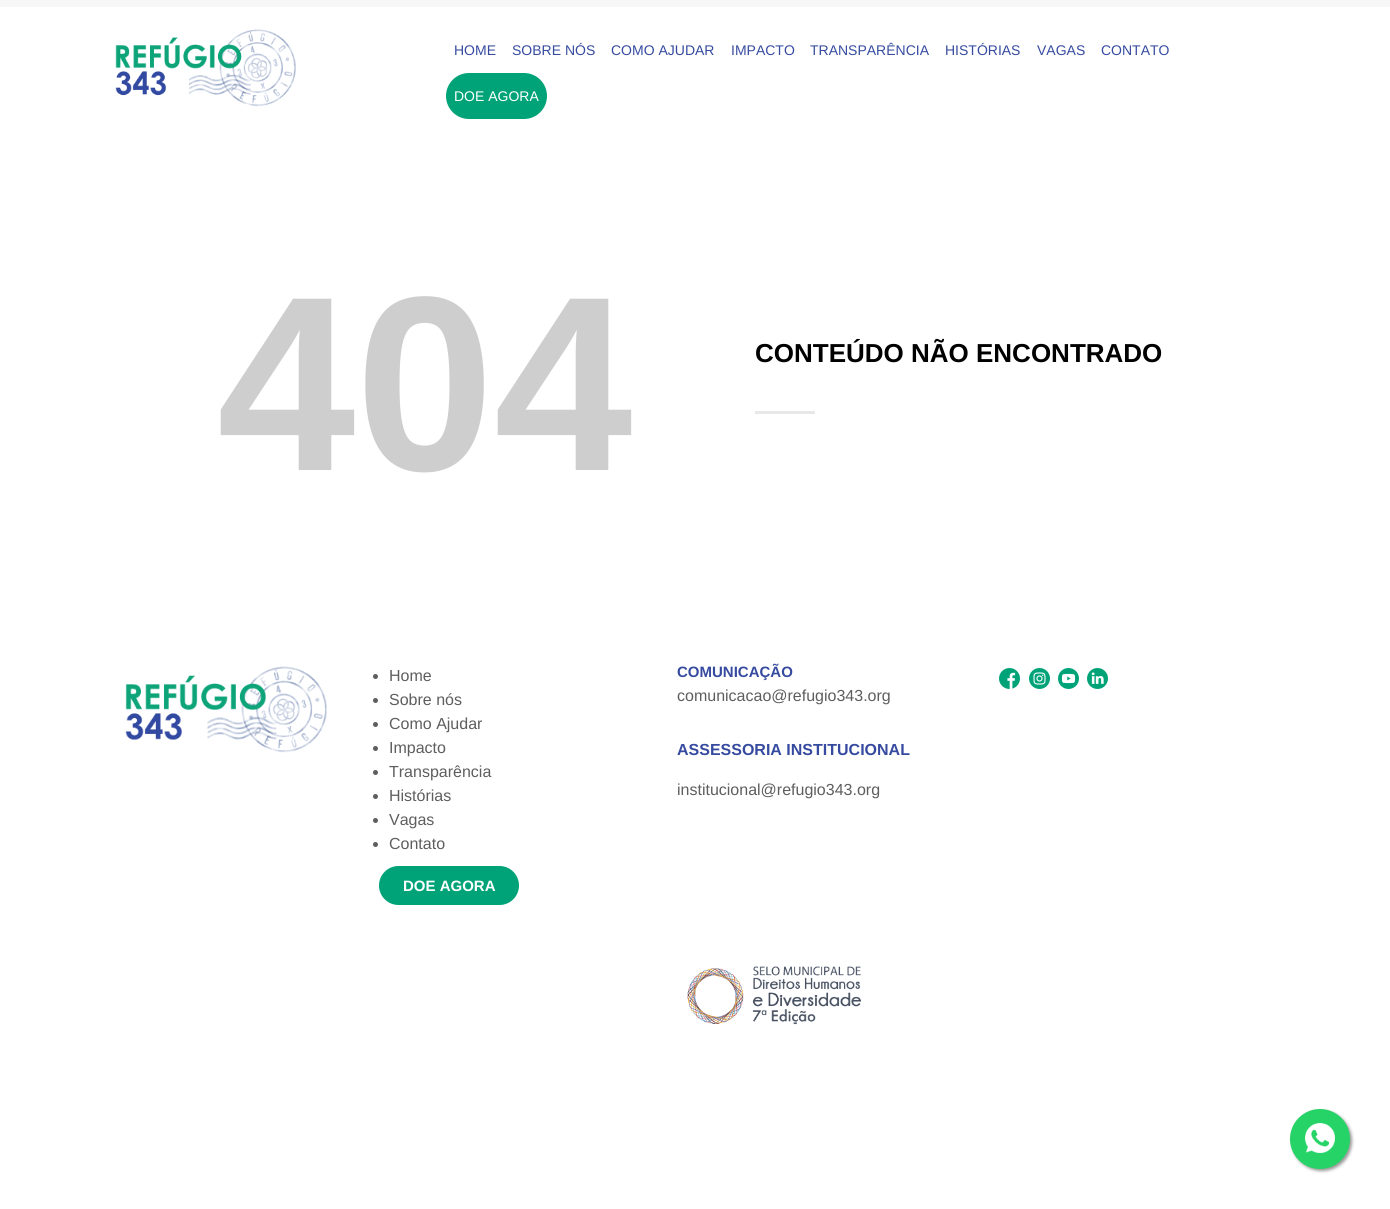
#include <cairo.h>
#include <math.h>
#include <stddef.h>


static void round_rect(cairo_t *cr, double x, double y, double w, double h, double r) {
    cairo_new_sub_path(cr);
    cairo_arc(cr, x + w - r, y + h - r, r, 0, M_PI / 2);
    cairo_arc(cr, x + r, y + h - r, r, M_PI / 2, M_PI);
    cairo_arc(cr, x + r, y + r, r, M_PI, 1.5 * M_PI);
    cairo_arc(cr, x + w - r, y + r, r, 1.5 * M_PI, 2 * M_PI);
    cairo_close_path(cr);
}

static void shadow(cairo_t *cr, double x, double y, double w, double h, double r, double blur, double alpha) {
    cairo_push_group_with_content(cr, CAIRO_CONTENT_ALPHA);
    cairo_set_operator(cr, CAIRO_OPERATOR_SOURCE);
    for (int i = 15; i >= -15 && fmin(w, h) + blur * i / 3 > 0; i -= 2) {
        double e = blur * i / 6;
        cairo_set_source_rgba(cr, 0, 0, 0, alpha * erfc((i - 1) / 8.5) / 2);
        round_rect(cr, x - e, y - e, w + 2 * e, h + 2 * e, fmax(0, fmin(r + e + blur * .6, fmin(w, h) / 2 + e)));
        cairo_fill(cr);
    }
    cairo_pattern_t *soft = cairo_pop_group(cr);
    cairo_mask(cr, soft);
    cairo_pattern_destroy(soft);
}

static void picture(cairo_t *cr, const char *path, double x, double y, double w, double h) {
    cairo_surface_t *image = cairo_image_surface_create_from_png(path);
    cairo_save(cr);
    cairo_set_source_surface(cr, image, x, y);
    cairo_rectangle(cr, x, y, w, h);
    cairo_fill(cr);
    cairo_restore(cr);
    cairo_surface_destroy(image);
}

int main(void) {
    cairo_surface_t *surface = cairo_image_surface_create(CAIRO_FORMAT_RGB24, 1390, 1209);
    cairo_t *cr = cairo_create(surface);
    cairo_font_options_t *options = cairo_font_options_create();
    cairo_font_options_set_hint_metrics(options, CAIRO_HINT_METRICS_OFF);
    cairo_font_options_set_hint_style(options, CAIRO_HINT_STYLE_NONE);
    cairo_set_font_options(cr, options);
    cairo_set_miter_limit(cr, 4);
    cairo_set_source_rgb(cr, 1, 1, 1);
    cairo_paint(cr);
    cairo_set_source_rgb(cr, 0.965, 0.965, 0.965);
    cairo_rectangle(cr, 0, 0, 1390, 7);
    cairo_fill(cr);
    picture(cr, "img1.png", 115, 29, 181, 78);
    cairo_select_font_face(cr, "Liberation Sans", CAIRO_FONT_SLANT_NORMAL, CAIRO_FONT_WEIGHT_NORMAL);
    cairo_set_font_size(cr, 14);
    cairo_set_source_rgb(cr, 0.212, 0.294, 0.627);
    cairo_move_to(cr, 454, 55);
    cairo_show_text(cr, "HOME");
    cairo_move_to(cr, 512, 55);
    cairo_show_text(cr, "SOBRE NÓS");
    cairo_move_to(cr, 611, 55);
    cairo_show_text(cr, "COMO AJUDAR");
    cairo_move_to(cr, 731, 55);
    cairo_show_text(cr, "IMPACTO");
    cairo_move_to(cr, 810, 55);
    cairo_show_text(cr, "TRANSPARÊNCIA");
    cairo_move_to(cr, 945, 55);
    cairo_show_text(cr, "HISTÓRIAS");
    cairo_move_to(cr, 1037, 55);
    cairo_show_text(cr, "VAGAS");
    cairo_move_to(cr, 1101, 55);
    cairo_show_text(cr, "CONTATO");
    cairo_set_source_rgb(cr, 0, 0.639, 0.471);
    round_rect(cr, 446, 73, 101, 46, 23);
    cairo_fill(cr);
    cairo_set_source_rgb(cr, 1, 1, 1);
    cairo_move_to(cr, 454, 101);
    cairo_show_text(cr, "DOE AGORA");
    cairo_select_font_face(cr, "Liberation Sans", CAIRO_FONT_SLANT_NORMAL, CAIRO_FONT_WEIGHT_BOLD);
    cairo_set_font_size(cr, 249);
    cairo_set_source_rgb(cr, 0.808, 0.808, 0.808);
    cairo_move_to(cr, 217, 470);
    cairo_show_text(cr, "404");
    cairo_set_font_size(cr, 26);
    cairo_set_source_rgb(cr, 0, 0, 0);
    cairo_move_to(cr, 755, 362);
    cairo_show_text(cr, "CONTEÚDO NÃO ENCONTRADO");
    cairo_set_source_rgb(cr, 0.91, 0.91, 0.91);
    cairo_rectangle(cr, 755, 411, 60, 3);
    cairo_fill(cr);
    picture(cr, "img2.png", 125, 666, 202, 87);
    cairo_set_source_rgb(cr, 0.369, 0.369, 0.369);
    cairo_arc(cr, 375.5, 676.5, 2.5, 0, 2 * M_PI);
    cairo_fill(cr);
    cairo_select_font_face(cr, "Liberation Sans", CAIRO_FONT_SLANT_NORMAL, CAIRO_FONT_WEIGHT_NORMAL);
    cairo_set_font_size(cr, 16);
    cairo_move_to(cr, 389, 681);
    cairo_show_text(cr, "Home");
    cairo_new_path(cr);
    cairo_arc(cr, 375.5, 700.5, 2.5, 0, 2 * M_PI);
    cairo_fill(cr);
    cairo_move_to(cr, 389, 705);
    cairo_show_text(cr, "Sobre nós");
    cairo_new_path(cr);
    cairo_arc(cr, 375.5, 724.5, 2.5, 0, 2 * M_PI);
    cairo_fill(cr);
    cairo_move_to(cr, 389, 729);
    cairo_show_text(cr, "Como Ajudar");
    cairo_new_path(cr);
    cairo_arc(cr, 375.5, 748.5, 2.5, 0, 2 * M_PI);
    cairo_fill(cr);
    cairo_move_to(cr, 389, 753);
    cairo_show_text(cr, "Impacto");
    cairo_new_path(cr);
    cairo_arc(cr, 375.5, 772.5, 2.5, 0, 2 * M_PI);
    cairo_fill(cr);
    cairo_move_to(cr, 389, 777);
    cairo_show_text(cr, "Transparência");
    cairo_new_path(cr);
    cairo_arc(cr, 375.5, 796.5, 2.5, 0, 2 * M_PI);
    cairo_fill(cr);
    cairo_move_to(cr, 389, 801);
    cairo_show_text(cr, "Histórias");
    cairo_new_path(cr);
    cairo_arc(cr, 375.5, 820.5, 2.5, 0, 2 * M_PI);
    cairo_fill(cr);
    cairo_move_to(cr, 389, 825);
    cairo_show_text(cr, "Vagas");
    cairo_new_path(cr);
    cairo_arc(cr, 375.5, 844.5, 2.5, 0, 2 * M_PI);
    cairo_fill(cr);
    cairo_move_to(cr, 389, 849);
    cairo_show_text(cr, "Contato");
    cairo_set_source_rgb(cr, 0, 0.639, 0.471);
    round_rect(cr, 379, 866, 140, 39, 19.5);
    cairo_fill(cr);
    cairo_select_font_face(cr, "Liberation Sans", CAIRO_FONT_SLANT_NORMAL, CAIRO_FONT_WEIGHT_BOLD);
    cairo_set_font_size(cr, 15);
    cairo_set_source_rgb(cr, 1, 1, 1);
    cairo_move_to(cr, 403, 891);
    cairo_show_text(cr, "DOE AGORA");
    cairo_set_source_rgb(cr, 0.212, 0.294, 0.627);
    cairo_move_to(cr, 677, 677);
    cairo_show_text(cr, "COMUNICAÇÃO");
    cairo_select_font_face(cr, "Liberation Sans", CAIRO_FONT_SLANT_NORMAL, CAIRO_FONT_WEIGHT_NORMAL);
    cairo_set_font_size(cr, 16);
    cairo_set_source_rgb(cr, 0.369, 0.369, 0.369);
    cairo_move_to(cr, 677, 701);
    cairo_show_text(cr, "comunicacao@refugio343.org");
    cairo_select_font_face(cr, "Liberation Sans", CAIRO_FONT_SLANT_NORMAL, CAIRO_FONT_WEIGHT_BOLD);
    cairo_set_source_rgb(cr, 0.212, 0.294, 0.627);
    cairo_move_to(cr, 677, 755);
    cairo_show_text(cr, "ASSESSORIA INSTITUCIONAL");
    cairo_select_font_face(cr, "Liberation Sans", CAIRO_FONT_SLANT_NORMAL, CAIRO_FONT_WEIGHT_NORMAL);
    cairo_set_source_rgb(cr, 0.369, 0.369, 0.369);
    cairo_move_to(cr, 677, 795);
    cairo_show_text(cr, "institucional@refugio343.org");
    picture(cr, "img3.png", 687, 966, 175, 59);
    picture(cr, "img4.png", 999, 668, 21, 21);
    picture(cr, "img5.png", 1029, 668, 21, 21);
    picture(cr, "img6.png", 1058, 668, 21, 21);
    picture(cr, "img7.png", 1087, 668, 21, 21);
    cairo_set_source_rgb(cr, 0.6, 0.6, 0.6);
    shadow(cr, 1292, 1111, 60, 60, 30, 1.5, 1);
    cairo_set_source_rgb(cr, 0.145, 0.827, 0.4);
    cairo_arc(cr, 1320, 1139, 30, 0, 2 * M_PI);
    cairo_fill(cr);
    picture(cr, "img8.png", 1305, 1123, 30, 30);
    cairo_surface_write_to_png(surface, "page.png");
    cairo_font_options_destroy(options);
    cairo_destroy(cr);
    cairo_surface_destroy(surface);
    return 0;
}
